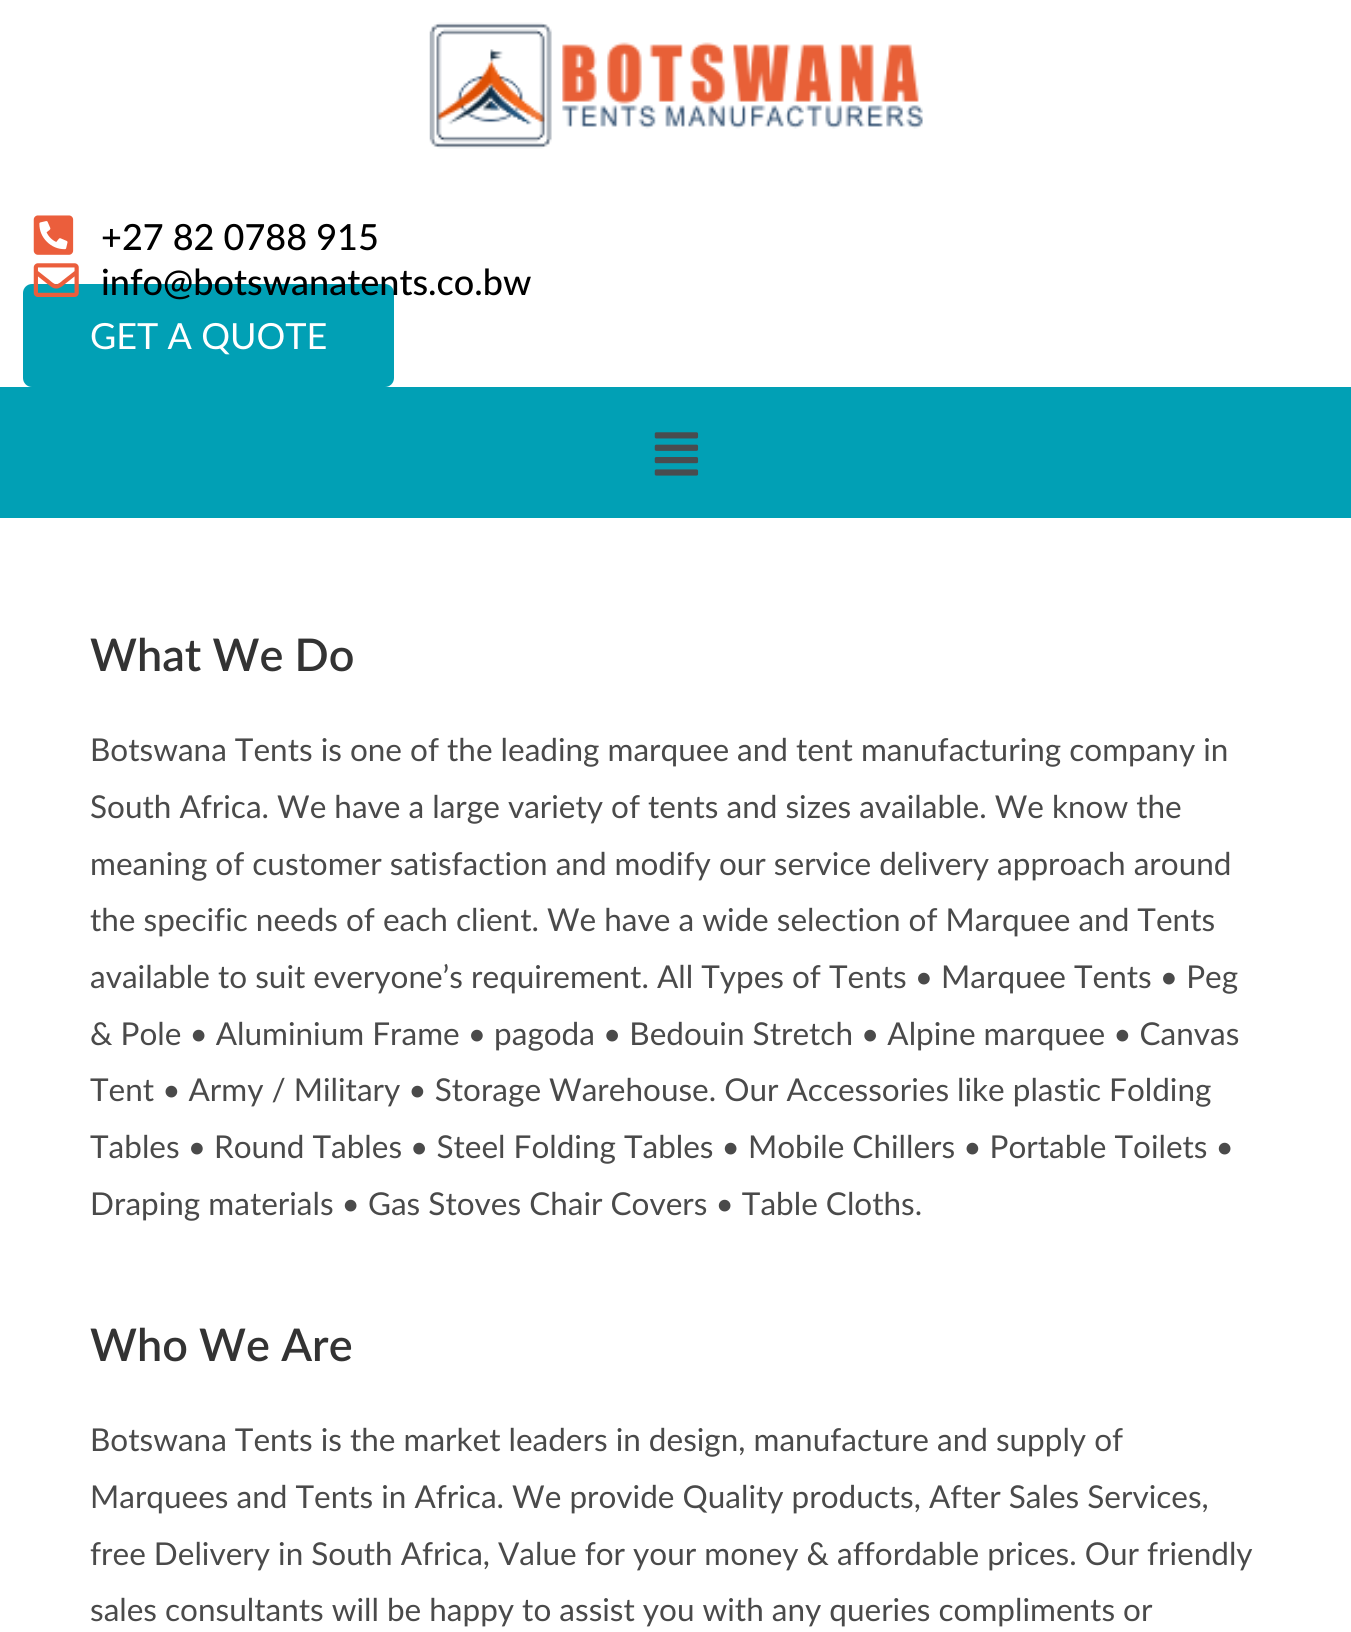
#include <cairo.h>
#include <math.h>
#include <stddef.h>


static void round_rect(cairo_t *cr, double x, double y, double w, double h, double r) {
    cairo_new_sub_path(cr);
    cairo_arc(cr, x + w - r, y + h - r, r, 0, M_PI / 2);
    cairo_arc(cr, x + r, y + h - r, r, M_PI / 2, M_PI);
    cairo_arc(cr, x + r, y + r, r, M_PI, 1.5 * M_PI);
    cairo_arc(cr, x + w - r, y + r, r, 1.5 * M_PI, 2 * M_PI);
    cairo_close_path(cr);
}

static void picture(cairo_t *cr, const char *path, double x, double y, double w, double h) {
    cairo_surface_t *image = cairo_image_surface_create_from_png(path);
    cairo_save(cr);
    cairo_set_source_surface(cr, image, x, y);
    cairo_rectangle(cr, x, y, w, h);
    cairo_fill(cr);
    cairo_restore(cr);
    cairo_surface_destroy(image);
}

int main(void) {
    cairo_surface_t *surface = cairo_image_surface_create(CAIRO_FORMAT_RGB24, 1351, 1632);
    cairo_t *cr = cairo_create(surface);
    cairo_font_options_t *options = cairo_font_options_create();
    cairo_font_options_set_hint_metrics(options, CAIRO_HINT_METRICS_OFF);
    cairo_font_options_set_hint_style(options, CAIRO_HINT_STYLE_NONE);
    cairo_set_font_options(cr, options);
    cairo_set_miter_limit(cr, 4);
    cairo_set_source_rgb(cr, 1, 1, 1);
    cairo_paint(cr);
    picture(cr, "img1.png", 429, 22, 494, 127);
    picture(cr, "img2.png", 33, 215, 41, 40);
    cairo_select_font_face(cr, "Lato Medium", CAIRO_FONT_SLANT_NORMAL, CAIRO_FONT_WEIGHT_NORMAL);
    cairo_set_font_size(cr, 36);
    cairo_set_source_rgb(cr, 0, 0, 0);
    cairo_move_to(cr, 101, 250);
    cairo_show_text(cr, "+27 82 0788 915");
    cairo_set_source_rgb(cr, 0.004, 0.627, 0.71);
    round_rect(cr, 23, 284, 371, 103, 9);
    cairo_fill(cr);
    picture(cr, "img3.png", 33, 263, 46, 34);
    cairo_set_source_rgb(cr, 0, 0, 0);
    cairo_move_to(cr, 101, 295);
    cairo_show_text(cr, "info@botswanatents.co.bw");
    cairo_select_font_face(cr, "Lato", CAIRO_FONT_SLANT_NORMAL, CAIRO_FONT_WEIGHT_NORMAL);
    cairo_set_source_rgb(cr, 1, 1, 1);
    cairo_move_to(cr, 90, 349);
    cairo_show_text(cr, "GET A QUOTE");
    cairo_set_source_rgb(cr, 0.004, 0.627, 0.71);
    cairo_rectangle(cr, 0, 387, 1351, 131);
    cairo_fill(cr);
    picture(cr, "img4.png", 654, 432, 45, 44);
    cairo_select_font_face(cr, "Lato SemiBold", CAIRO_FONT_SLANT_NORMAL, CAIRO_FONT_WEIGHT_NORMAL);
    cairo_set_font_size(cr, 45);
    cairo_set_source_rgb(cr, 0.2, 0.2, 0.2);
    cairo_move_to(cr, 90, 671);
    cairo_show_text(cr, "What We Do");
    cairo_select_font_face(cr, "Lato", CAIRO_FONT_SLANT_NORMAL, CAIRO_FONT_WEIGHT_NORMAL);
    cairo_set_font_size(cr, 31.5);
    cairo_set_source_rgb(cr, 0.29, 0.29, 0.29);
    cairo_move_to(cr, 90, 761);
    cairo_show_text(cr, "Botswana Tents is one of the leading marquee and tent manufacturing company in");
    cairo_move_to(cr, 90, 818);
    cairo_show_text(cr, "South Africa. We have a large variety of tents and sizes available. We know the");
    cairo_move_to(cr, 90, 875);
    cairo_show_text(cr, "meaning of customer satisfaction and modify our service delivery approach around");
    cairo_move_to(cr, 90, 931);
    cairo_show_text(cr, "the specific needs of each client. We have a wide selection of Marquee and Tents");
    cairo_move_to(cr, 90, 988);
    cairo_show_text(cr, "available to suit everyone’s requirement. All Types of Tents • Marquee Tents • Peg");
    cairo_move_to(cr, 90, 1045);
    cairo_show_text(cr, "& Pole • Aluminium Frame • pagoda • Bedouin Stretch • Alpine marquee • Canvas");
    cairo_move_to(cr, 90, 1101);
    cairo_show_text(cr, "Tent • Army / Military • Storage Warehouse. Our Accessories like plastic Folding");
    cairo_move_to(cr, 90, 1158);
    cairo_show_text(cr, "Tables • Round Tables • Steel Folding Tables • Mobile Chillers • Portable Toilets •");
    cairo_move_to(cr, 90, 1215);
    cairo_show_text(cr, "Draping materials • Gas Stoves Chair Covers • Table Cloths.");
    cairo_select_font_face(cr, "Lato SemiBold", CAIRO_FONT_SLANT_NORMAL, CAIRO_FONT_WEIGHT_NORMAL);
    cairo_set_font_size(cr, 45);
    cairo_set_source_rgb(cr, 0.2, 0.2, 0.2);
    cairo_move_to(cr, 90, 1361);
    cairo_show_text(cr, "Who We Are");
    cairo_select_font_face(cr, "Lato", CAIRO_FONT_SLANT_NORMAL, CAIRO_FONT_WEIGHT_NORMAL);
    cairo_set_font_size(cr, 31.5);
    cairo_set_source_rgb(cr, 0.29, 0.29, 0.29);
    cairo_move_to(cr, 90, 1451);
    cairo_show_text(cr, "Botswana Tents is the market leaders in design, manufacture and supply of");
    cairo_move_to(cr, 90, 1508);
    cairo_show_text(cr, "Marquees and Tents in Africa. We provide Quality products, After Sales Services,");
    cairo_move_to(cr, 90, 1565);
    cairo_show_text(cr, "free Delivery in South Africa, Value for your money & affordable prices. Our friendly");
    cairo_move_to(cr, 90, 1621);
    cairo_show_text(cr, "sales consultants will be happy to assist you with any queries compliments or");
    cairo_surface_write_to_png(surface, "page.png");
    cairo_font_options_destroy(options);
    cairo_destroy(cr);
    cairo_surface_destroy(surface);
    return 0;
}
